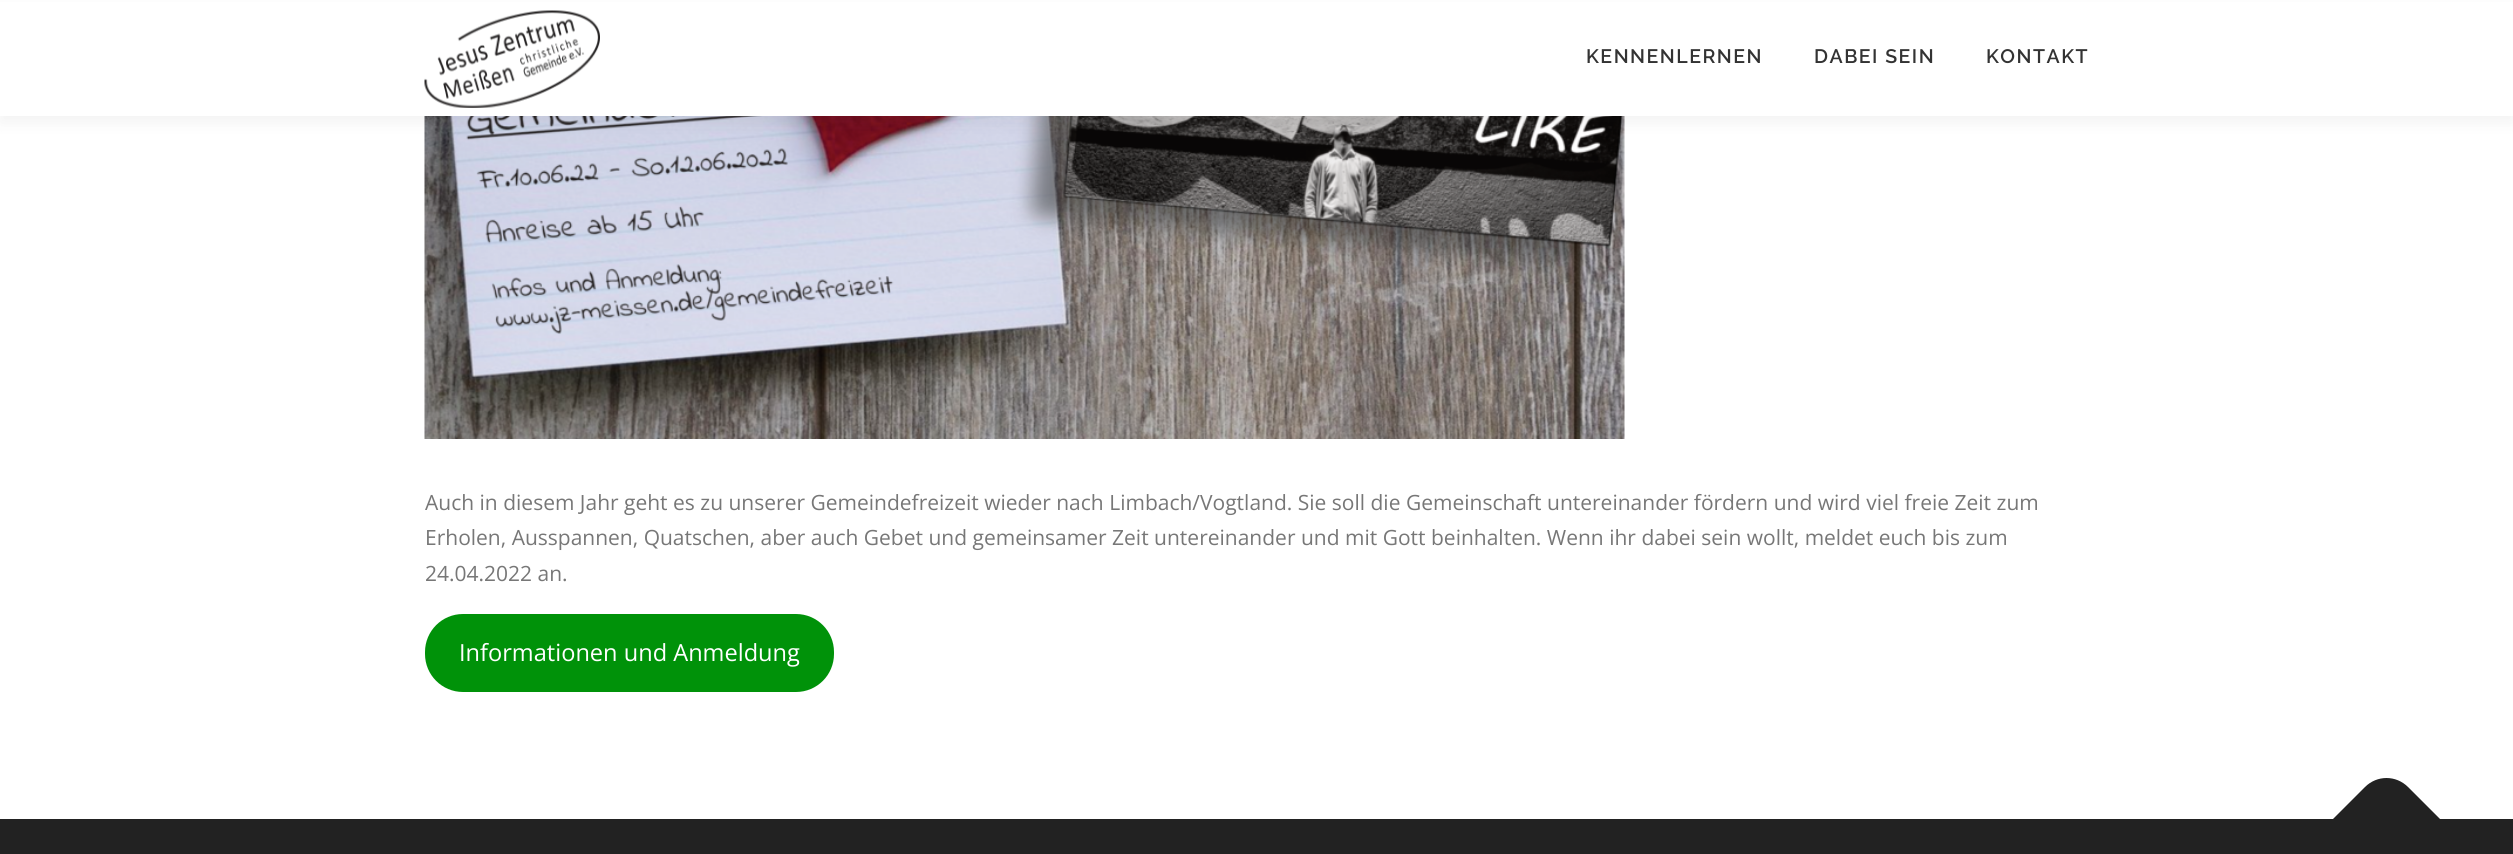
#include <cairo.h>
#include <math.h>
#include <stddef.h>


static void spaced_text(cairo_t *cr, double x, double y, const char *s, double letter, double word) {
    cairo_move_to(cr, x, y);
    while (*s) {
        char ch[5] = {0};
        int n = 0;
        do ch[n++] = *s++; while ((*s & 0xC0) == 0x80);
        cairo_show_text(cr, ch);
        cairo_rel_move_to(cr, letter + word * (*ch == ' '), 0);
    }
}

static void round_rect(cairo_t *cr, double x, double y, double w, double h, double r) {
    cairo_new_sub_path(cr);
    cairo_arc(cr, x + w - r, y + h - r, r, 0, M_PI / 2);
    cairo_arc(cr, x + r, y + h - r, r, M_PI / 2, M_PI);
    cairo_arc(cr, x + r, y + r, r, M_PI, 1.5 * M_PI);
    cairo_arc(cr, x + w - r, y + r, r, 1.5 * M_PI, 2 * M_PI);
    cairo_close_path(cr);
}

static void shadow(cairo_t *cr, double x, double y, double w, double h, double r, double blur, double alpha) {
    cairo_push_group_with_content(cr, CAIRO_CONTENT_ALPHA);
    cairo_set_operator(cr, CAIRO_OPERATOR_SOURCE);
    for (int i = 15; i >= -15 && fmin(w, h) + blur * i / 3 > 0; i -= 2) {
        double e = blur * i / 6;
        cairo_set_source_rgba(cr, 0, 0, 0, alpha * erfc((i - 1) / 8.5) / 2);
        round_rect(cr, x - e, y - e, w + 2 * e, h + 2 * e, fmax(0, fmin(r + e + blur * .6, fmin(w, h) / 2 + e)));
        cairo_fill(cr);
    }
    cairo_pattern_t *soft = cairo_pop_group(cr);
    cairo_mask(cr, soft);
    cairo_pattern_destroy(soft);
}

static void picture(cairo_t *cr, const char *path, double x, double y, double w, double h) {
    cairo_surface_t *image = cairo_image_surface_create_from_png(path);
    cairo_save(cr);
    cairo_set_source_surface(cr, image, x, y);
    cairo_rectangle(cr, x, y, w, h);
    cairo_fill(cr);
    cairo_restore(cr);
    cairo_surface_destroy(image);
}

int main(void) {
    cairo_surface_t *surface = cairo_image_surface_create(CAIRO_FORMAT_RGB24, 2513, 854);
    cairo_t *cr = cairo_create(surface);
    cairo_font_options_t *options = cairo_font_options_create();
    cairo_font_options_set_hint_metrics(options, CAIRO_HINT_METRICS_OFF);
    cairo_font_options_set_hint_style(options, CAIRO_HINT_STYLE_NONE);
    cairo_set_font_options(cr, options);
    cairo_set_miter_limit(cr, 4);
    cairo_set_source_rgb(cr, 1, 1, 1);
    cairo_paint(cr);
    picture(cr, "img2.png", 424, 116, 1201, 323);
    cairo_set_source_rgb(cr, 0.196, 0.196, 0.196);
    shadow(cr, 0, 8, 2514, 115, 0, 7.5, 0.06);
    cairo_set_source_rgb(cr, 1, 1, 1);
    cairo_rectangle(cr, 0, 2, 2513, 114);
    cairo_fill(cr);
    picture(cr, "img1.png", 424, 10, 176, 98);
    cairo_select_font_face(cr, "Raleway SemiBold", CAIRO_FONT_SLANT_NORMAL, CAIRO_FONT_WEIGHT_NORMAL);
    cairo_set_font_size(cr, 19.5);
    cairo_set_source_rgb(cr, 0.2, 0.2, 0.2);
    spaced_text(cr, 1586, 63, "KENNENLERNEN", 1.5, 0);
    spaced_text(cr, 1814, 63, "DABEI SEIN", 1.5, 0);
    spaced_text(cr, 1986, 63, "KONTAKT", 1.5, 0);
    cairo_select_font_face(cr, "Open Sans", CAIRO_FONT_SLANT_NORMAL, CAIRO_FONT_WEIGHT_NORMAL);
    cairo_set_font_size(cr, 21);
    cairo_set_source_rgb(cr, 0.467, 0.467, 0.467);
    cairo_move_to(cr, 425, 510);
    cairo_show_text(cr, "Auch in diesem Jahr geht es zu unserer Gemeindefreizeit wieder nach Limbach/Vogtland. Sie soll die Gemeinschaft untereinander fördern und wird viel freie Zeit zum");
    cairo_move_to(cr, 425, 545);
    cairo_show_text(cr, "Erholen, Ausspannen, Quatschen, aber auch Gebet und gemeinsamer Zeit untereinander und mit Gott beinhalten. Wenn ihr dabei sein wollt, meldet euch bis zum");
    cairo_move_to(cr, 425, 581);
    cairo_show_text(cr, "24.04.2022 an.");
    cairo_set_source_rgb(cr, 0, 0.573, 0.039);
    round_rect(cr, 425, 614, 409, 78, 38);
    cairo_fill(cr);
    cairo_set_font_size(cr, 23.6);
    cairo_set_source_rgb(cr, 1, 1, 1);
    cairo_move_to(cr, 459, 661);
    cairo_show_text(cr, "Informationen und Anmeldung");
    cairo_set_source_rgb(cr, 0.133, 0.133, 0.133);
    cairo_rectangle(cr, 0, 819, 2513, 35);
    cairo_fill(cr);
    cairo_new_path(cr);
    cairo_move_to(cr, 2333, 819);
    cairo_line_to(cr, 2365, 787);
    cairo_curve_to(cr, 2377, 775, 2396, 775, 2408, 787);
    cairo_line_to(cr, 2440, 819);
    cairo_line_to(cr, 2386, 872);
    cairo_close_path(cr);
    cairo_fill(cr);
    cairo_surface_write_to_png(surface, "page.png");
    cairo_font_options_destroy(options);
    cairo_destroy(cr);
    cairo_surface_destroy(surface);
    return 0;
}
